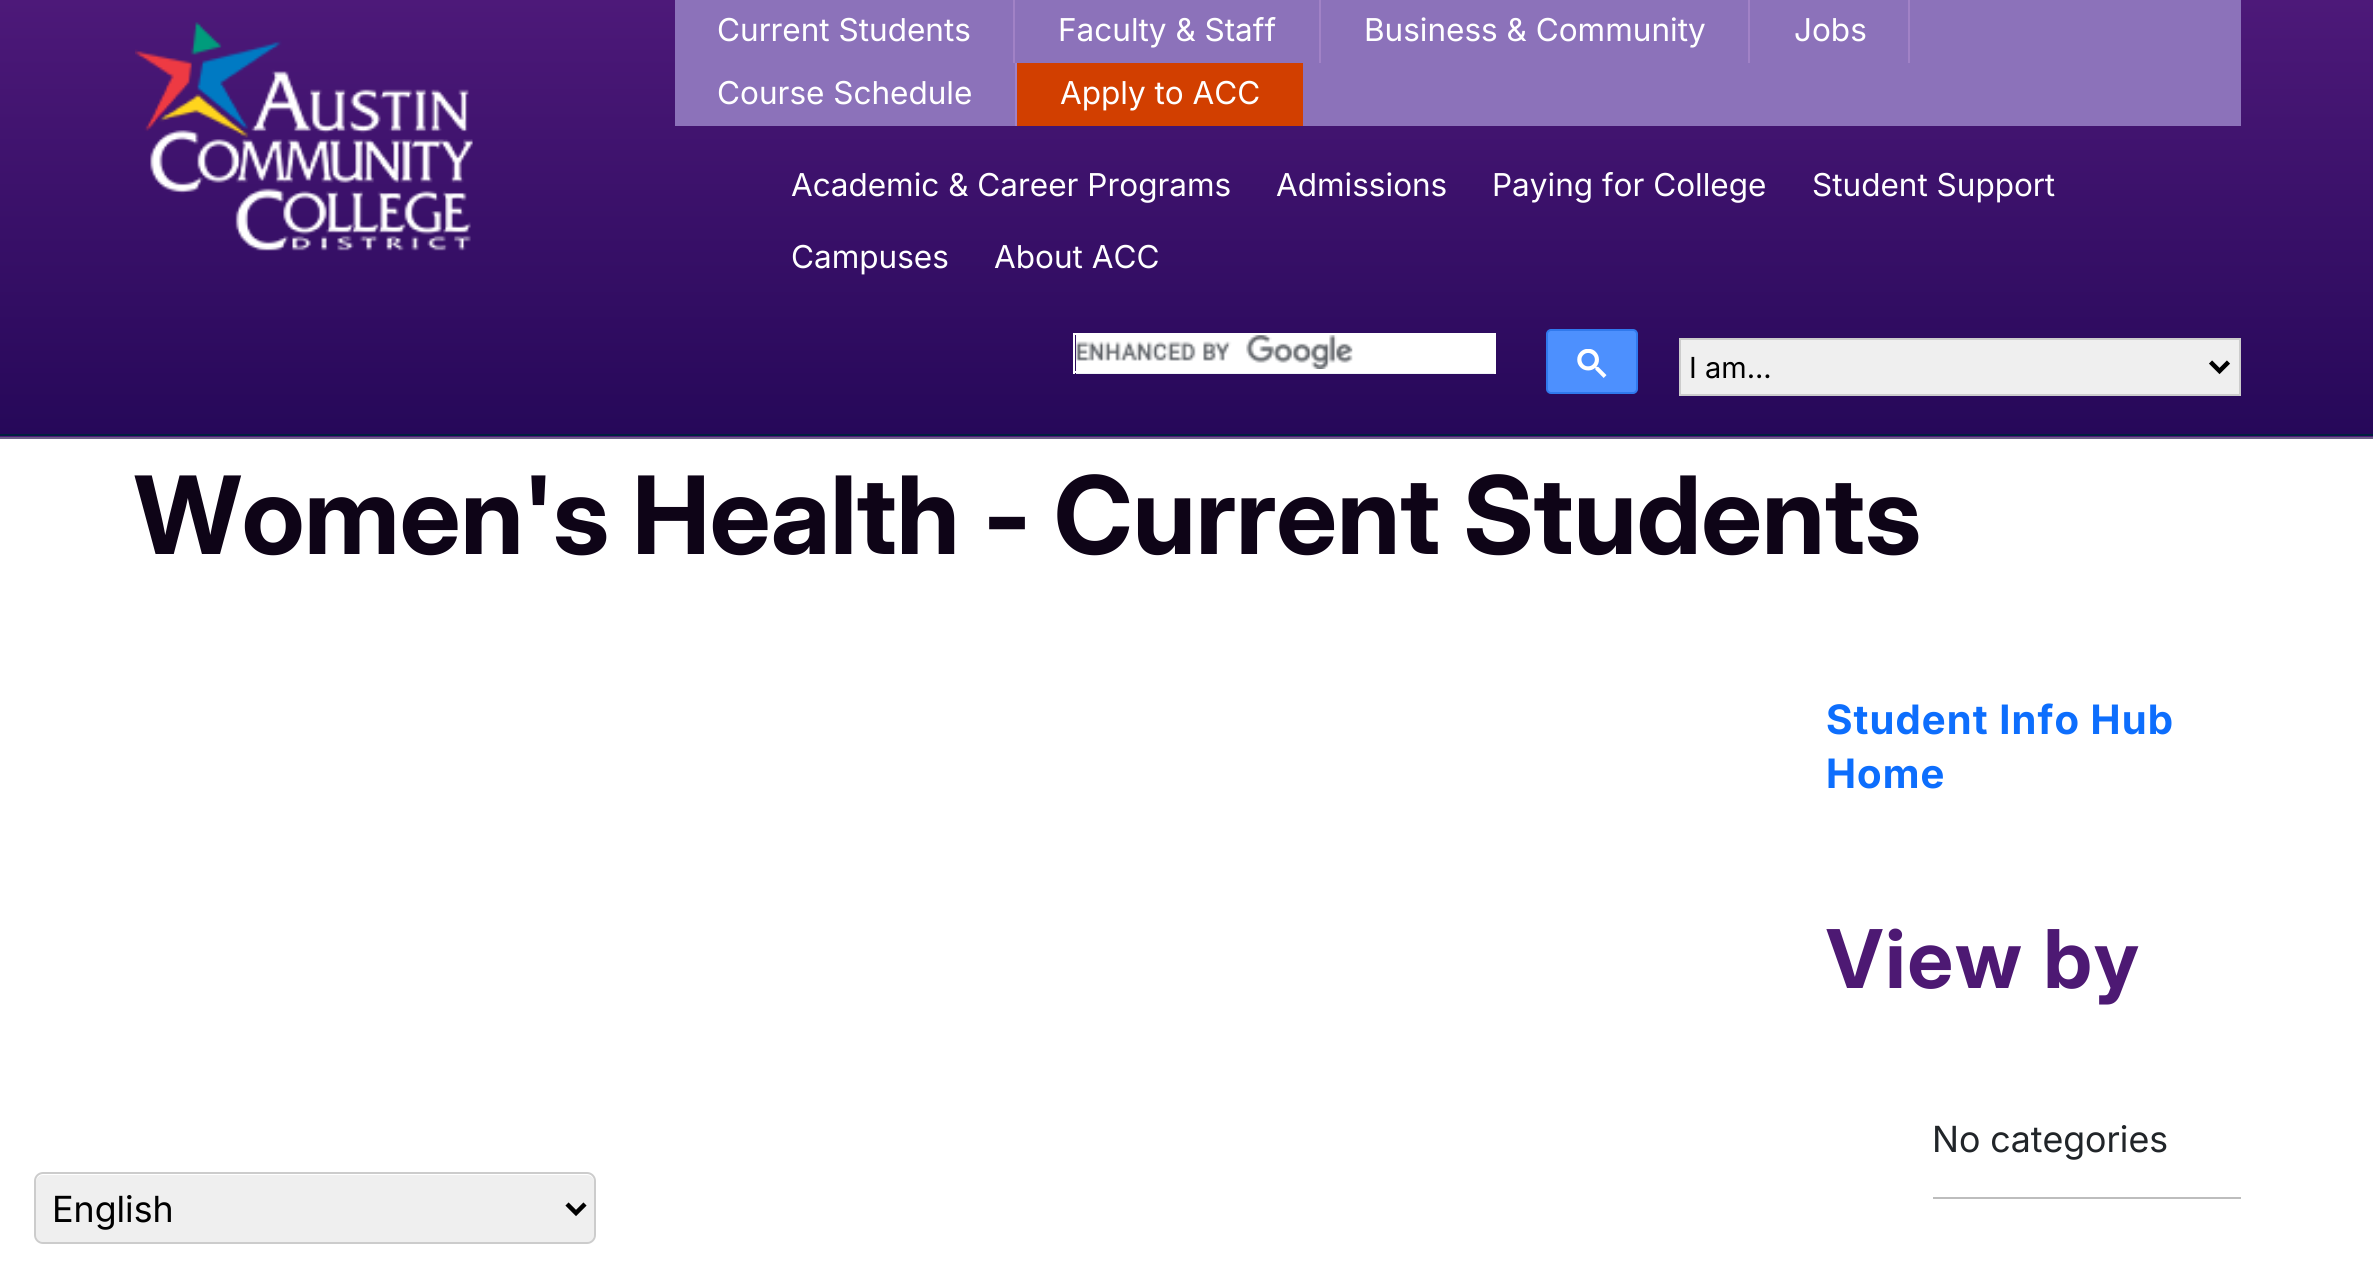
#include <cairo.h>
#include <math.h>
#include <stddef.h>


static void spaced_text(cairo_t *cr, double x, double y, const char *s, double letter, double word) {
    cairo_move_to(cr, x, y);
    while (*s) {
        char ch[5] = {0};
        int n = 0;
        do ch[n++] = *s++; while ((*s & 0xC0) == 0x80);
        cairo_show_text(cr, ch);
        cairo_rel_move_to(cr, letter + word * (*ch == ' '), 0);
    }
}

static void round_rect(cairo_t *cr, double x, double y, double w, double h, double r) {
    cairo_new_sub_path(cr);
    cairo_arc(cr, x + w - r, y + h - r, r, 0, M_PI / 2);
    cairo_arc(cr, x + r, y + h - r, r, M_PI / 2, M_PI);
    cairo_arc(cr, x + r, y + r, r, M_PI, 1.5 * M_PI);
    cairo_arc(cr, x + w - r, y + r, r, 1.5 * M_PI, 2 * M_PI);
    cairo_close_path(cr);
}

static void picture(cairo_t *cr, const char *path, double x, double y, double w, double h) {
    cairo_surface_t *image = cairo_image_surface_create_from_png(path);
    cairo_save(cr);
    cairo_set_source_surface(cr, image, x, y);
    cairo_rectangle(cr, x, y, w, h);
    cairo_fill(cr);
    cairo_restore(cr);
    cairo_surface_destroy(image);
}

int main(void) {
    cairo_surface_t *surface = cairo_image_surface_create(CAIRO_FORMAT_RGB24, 2373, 1276);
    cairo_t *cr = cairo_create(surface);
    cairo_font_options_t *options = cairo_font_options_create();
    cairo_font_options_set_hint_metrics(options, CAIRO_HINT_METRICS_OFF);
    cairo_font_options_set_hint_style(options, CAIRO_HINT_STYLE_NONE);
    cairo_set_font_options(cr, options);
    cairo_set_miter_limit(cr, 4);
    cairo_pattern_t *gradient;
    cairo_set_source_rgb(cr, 1, 1, 1);
    cairo_paint(cr);
    gradient = cairo_pattern_create_linear(1187, 0, 1187, 434);
    cairo_pattern_add_color_stop_rgba(gradient, 0, 0.302, 0.098, 0.475, 1);
    cairo_pattern_add_color_stop_rgba(gradient, 1, 0.149, 0.031, 0.349, 1);
    cairo_set_source(cr, gradient);
    cairo_pattern_destroy(gradient);
    cairo_rectangle(cr, 0, 0, 2373, 434);
    cairo_fill(cr);
    gradient = cairo_pattern_create_linear(1187, 434, 1187, 869);
    cairo_pattern_add_color_stop_rgba(gradient, 0, 0.302, 0.098, 0.475, 1);
    cairo_pattern_add_color_stop_rgba(gradient, 1, 0.149, 0.031, 0.349, 1);
    cairo_set_source(cr, gradient);
    cairo_pattern_destroy(gradient);
    cairo_rectangle(cr, 0, 436, 2373, 1);
    cairo_fill(cr);
    cairo_set_source_rgb(cr, 0, 0.125, 0.247);
    cairo_rectangle(cr, 0, 434, 2373, 2);
    cairo_fill(cr);
    picture(cr, "img1.png", 135, 22, 338, 229);
    cairo_set_source_rgb(cr, 0.549, 0.447, 0.729);
    cairo_rectangle(cr, 675, 0, 1566, 126);
    cairo_fill(cr);
    cairo_set_source_rgb(cr, 0.631, 0.51, 0.776);
    cairo_rectangle(cr, 1013, 0, 2, 63);
    cairo_fill(cr);
    cairo_select_font_face(cr, "Inter", CAIRO_FONT_SLANT_NORMAL, CAIRO_FONT_WEIGHT_NORMAL);
    cairo_set_font_size(cr, 31.5);
    cairo_set_source_rgb(cr, 1, 1, 1);
    cairo_move_to(cr, 717, 41);
    cairo_show_text(cr, "Current Students");
    cairo_set_source_rgb(cr, 0.631, 0.51, 0.776);
    cairo_rectangle(cr, 1319, 0, 2, 63);
    cairo_fill(cr);
    cairo_set_source_rgb(cr, 1, 1, 1);
    cairo_move_to(cr, 1058, 41);
    cairo_show_text(cr, "Faculty & Staff");
    cairo_set_source_rgb(cr, 0.631, 0.51, 0.776);
    cairo_rectangle(cr, 1748, 0, 2, 63);
    cairo_fill(cr);
    cairo_set_source_rgb(cr, 1, 1, 1);
    cairo_move_to(cr, 1364, 41);
    cairo_show_text(cr, "Business & Community");
    cairo_set_source_rgb(cr, 0.631, 0.51, 0.776);
    cairo_rectangle(cr, 1908, 0, 2, 63);
    cairo_fill(cr);
    cairo_set_source_rgb(cr, 1, 1, 1);
    cairo_move_to(cr, 1794, 41);
    cairo_show_text(cr, "Jobs");
    cairo_set_source_rgb(cr, 0.631, 0.51, 0.776);
    cairo_rectangle(cr, 1015, 63, 2, 63);
    cairo_fill(cr);
    cairo_set_source_rgb(cr, 1, 1, 1);
    cairo_move_to(cr, 717, 104);
    cairo_show_text(cr, "Course Schedule");
    cairo_set_source_rgb(cr, 0.824, 0.247, 0);
    cairo_rectangle(cr, 1017, 63, 286, 63);
    cairo_fill(cr);
    cairo_set_source_rgb(cr, 1, 1, 1);
    cairo_move_to(cr, 1060, 104);
    cairo_show_text(cr, "Apply to ACC");
    cairo_move_to(cr, 791, 196);
    cairo_show_text(cr, "Academic & Career Programs");
    cairo_move_to(cr, 1276, 196);
    cairo_show_text(cr, "Admissions");
    cairo_move_to(cr, 1492, 196);
    cairo_show_text(cr, "Paying for College");
    cairo_move_to(cr, 1812, 196);
    cairo_show_text(cr, "Student Support");
    cairo_move_to(cr, 791, 268);
    cairo_show_text(cr, "Campuses");
    cairo_move_to(cr, 994, 268);
    cairo_show_text(cr, "About ACC");
    cairo_set_source_rgb(cr, 0.933, 0.945, 0.961);
    cairo_rectangle(cr, 1076, 373, 418, 1);
    cairo_fill(cr);
    cairo_set_source_rgb(cr, 1, 1, 1);
    cairo_rectangle(cr, 1073, 333, 423, 2);
    cairo_fill(cr);
    cairo_rectangle(cr, 1494, 333, 2, 41);
    cairo_fill(cr);
    cairo_rectangle(cr, 1073, 371, 423, 2);
    cairo_fill(cr);
    cairo_rectangle(cr, 1073, 333, 2, 41);
    cairo_fill(cr);
    cairo_rectangle(cr, 1076, 335, 418, 36);
    cairo_fill(cr);
    picture(cr, "img2.png", 1075, 335, 278, 34);
    cairo_set_source_rgb(cr, 0.302, 0.565, 0.996);
    round_rect(cr, 1547, 330, 90, 63, 4);
    cairo_fill_preserve(cr);
    cairo_set_source_rgb(cr, 0.188, 0.475, 0.929);
    cairo_stroke(cr);
    picture(cr, "img3.png", 1577, 349, 30, 29);
    cairo_set_source_rgb(cr, 0.937, 0.937, 0.937);
    cairo_rectangle(cr, 1680, 339, 560, 56);
    cairo_fill_preserve(cr);
    cairo_set_source_rgb(cr, 0.8, 0.8, 0.8);
    cairo_stroke(cr);
    cairo_new_path(cr);
    cairo_move_to(cr, 2210.5, 362);
    cairo_line_to(cr, 2219.5, 371);
    cairo_line_to(cr, 2228.5, 362);
    cairo_set_source_rgb(cr, 0, 0, 0);
    cairo_set_line_width(cr, 4.5);
    cairo_stroke(cr);
    cairo_set_font_size(cr, 29);
    cairo_move_to(cr, 1689, 378);
    cairo_show_text(cr, "I am...");
    cairo_set_source_rgb(cr, 0.427, 0.369, 0.533);
    cairo_rectangle(cr, 0, 437, 2373, 2);
    cairo_fill(cr);
    cairo_select_font_face(cr, "Inter", CAIRO_FONT_SLANT_NORMAL, CAIRO_FONT_WEIGHT_BOLD);
    cairo_set_font_size(cr, 108);
    cairo_set_source_rgb(cr, 0.055, 0.016, 0.09);
    cairo_move_to(cr, 134, 554);
    cairo_show_text(cr, "Women's Health - Current Students");
    cairo_select_font_face(cr, "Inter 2", CAIRO_FONT_SLANT_NORMAL, CAIRO_FONT_WEIGHT_BOLD);
    cairo_set_font_size(cr, 40.5);
    cairo_set_source_rgb(cr, 0.051, 0.431, 0.992);
    spaced_text(cr, 1826, 734, "Student Info Hub", 1.1, 0);
    spaced_text(cr, 1826, 788, "Home", 1.1, 0);
    cairo_select_font_face(cr, "Inter", CAIRO_FONT_SLANT_NORMAL, CAIRO_FONT_WEIGHT_BOLD);
    cairo_set_font_size(cr, 81);
    cairo_set_source_rgb(cr, 0.302, 0.098, 0.451);
    spaced_text(cr, 1826, 988, "View by", 2.25, 0);
    cairo_set_source_rgb(cr, 0.741, 0.741, 0.741);
    cairo_rectangle(cr, 1933, 1197, 308, 2);
    cairo_fill(cr);
    cairo_select_font_face(cr, "Inter 2", CAIRO_FONT_SLANT_NORMAL, CAIRO_FONT_WEIGHT_NORMAL);
    cairo_set_font_size(cr, 36);
    cairo_set_source_rgb(cr, 0.129, 0.145, 0.161);
    cairo_move_to(cr, 1932, 1152);
    cairo_show_text(cr, "No categories");
    cairo_set_source_rgb(cr, 0.937, 0.937, 0.937);
    round_rect(cr, 36, 1175, 558, 67, 7);
    cairo_fill(cr);
    round_rect(cr, 35, 1173, 560, 70, 8);
    cairo_set_source_rgb(cr, 0.8, 0.8, 0.8);
    cairo_set_line_width(cr, 2);
    cairo_stroke(cr);
    cairo_new_path(cr);
    cairo_move_to(cr, 567, 1204);
    cairo_line_to(cr, 576, 1213);
    cairo_line_to(cr, 585, 1204);
    cairo_set_source_rgb(cr, 0, 0, 0);
    cairo_set_line_width(cr, 4.5);
    cairo_stroke(cr);
    cairo_move_to(cr, 52, 1222);
    cairo_show_text(cr, "English");
    cairo_surface_write_to_png(surface, "page.png");
    cairo_font_options_destroy(options);
    cairo_destroy(cr);
    cairo_surface_destroy(surface);
    return 0;
}
